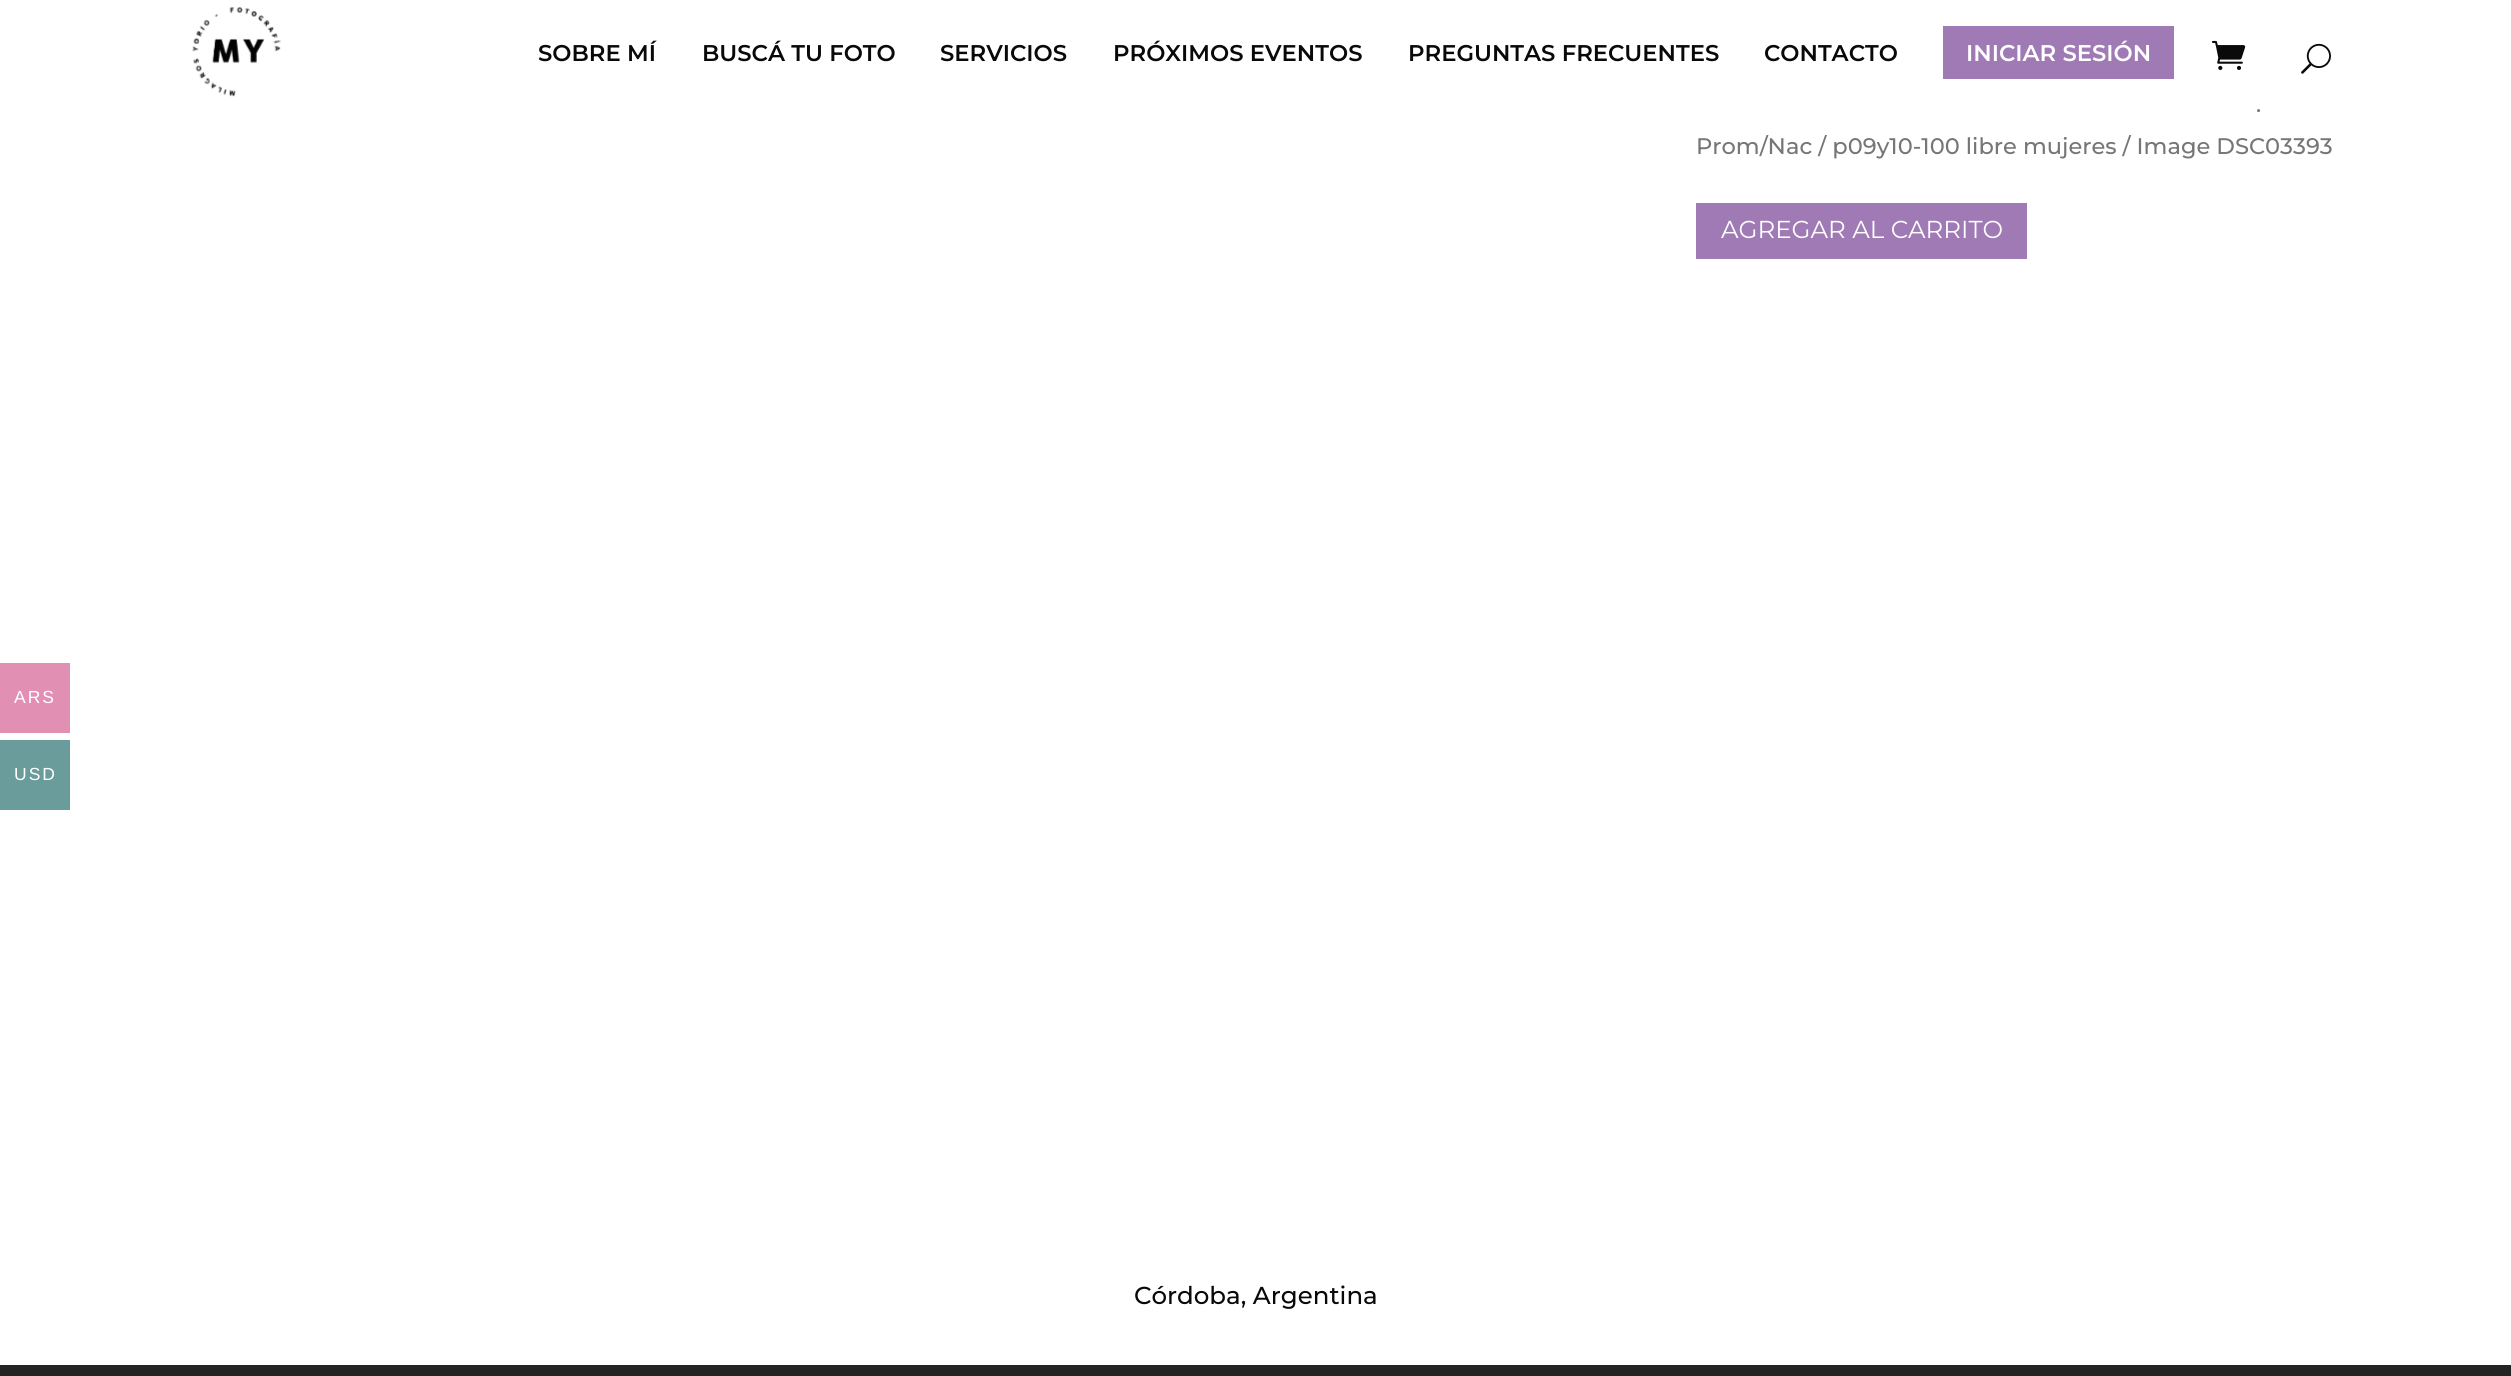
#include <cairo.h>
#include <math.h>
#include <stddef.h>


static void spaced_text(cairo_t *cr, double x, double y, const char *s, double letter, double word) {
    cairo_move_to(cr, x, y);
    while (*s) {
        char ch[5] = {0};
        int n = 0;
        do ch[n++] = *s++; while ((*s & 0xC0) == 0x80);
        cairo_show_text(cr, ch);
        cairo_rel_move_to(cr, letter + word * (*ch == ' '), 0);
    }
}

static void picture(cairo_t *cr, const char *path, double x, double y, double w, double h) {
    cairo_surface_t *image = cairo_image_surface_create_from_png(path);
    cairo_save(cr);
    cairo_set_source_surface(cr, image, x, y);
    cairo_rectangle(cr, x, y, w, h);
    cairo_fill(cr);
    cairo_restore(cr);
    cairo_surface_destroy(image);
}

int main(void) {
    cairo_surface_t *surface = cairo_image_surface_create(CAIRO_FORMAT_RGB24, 2511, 1376);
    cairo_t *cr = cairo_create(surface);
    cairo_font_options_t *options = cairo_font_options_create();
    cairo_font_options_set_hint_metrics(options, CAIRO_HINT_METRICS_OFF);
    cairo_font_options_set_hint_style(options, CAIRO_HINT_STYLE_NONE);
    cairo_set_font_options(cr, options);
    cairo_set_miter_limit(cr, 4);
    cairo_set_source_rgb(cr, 1, 1, 1);
    cairo_paint(cr);
    cairo_set_source_rgb(cr, 0.882, 0.565, 0.706);
    cairo_rectangle(cr, 0, 663, 70, 70);
    cairo_fill(cr);
    cairo_select_font_face(cr, "Liberation Sans", CAIRO_FONT_SLANT_NORMAL, CAIRO_FONT_WEIGHT_NORMAL);
    cairo_set_font_size(cr, 17.5);
    cairo_set_source_rgb(cr, 1, 1, 1);
    spaced_text(cr, 14, 703, "ARS", 2, 0);
    cairo_set_source_rgb(cr, 0.416, 0.612, 0.608);
    cairo_rectangle(cr, 0, 740, 70, 70);
    cairo_fill(cr);
    cairo_set_source_rgb(cr, 1, 1, 1);
    spaced_text(cr, 14, 780, "USD", 2, 0);
    picture(cr, "img1.png", 192, 7, 89, 90);
    cairo_select_font_face(cr, "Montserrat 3 Thin", CAIRO_FONT_SLANT_NORMAL, CAIRO_FONT_WEIGHT_NORMAL);
    cairo_set_font_size(cr, 22.75);
    cairo_set_source_rgb(cr, 0.039, 0.039, 0.039);
    cairo_move_to(cr, 538, 61);
    cairo_show_text(cr, "SOBRE MÍ");
    cairo_move_to(cr, 702, 61);
    cairo_show_text(cr, "BUSCÁ TU FOTO");
    cairo_move_to(cr, 940, 61);
    cairo_show_text(cr, "SERVICIOS");
    cairo_move_to(cr, 1113, 61);
    cairo_show_text(cr, "PRÓXIMOS EVENTOS");
    cairo_move_to(cr, 1408, 61);
    cairo_show_text(cr, "PREGUNTAS FRECUENTES");
    cairo_move_to(cr, 1764, 61);
    cairo_show_text(cr, "CONTACTO");
    cairo_set_source_rgb(cr, 0.627, 0.478, 0.71);
    cairo_rectangle(cr, 1943, 26, 231, 53);
    cairo_fill(cr);
    cairo_set_source_rgb(cr, 1, 1, 1);
    cairo_move_to(cr, 1966, 61);
    cairo_show_text(cr, "INICIAR SESIÓN");
    picture(cr, "img2.png", 2212, 40, 34, 30);
    picture(cr, "img3.png", 2301, 43, 30, 31);
    cairo_select_font_face(cr, "Montserrat Thin", CAIRO_FONT_SLANT_NORMAL, CAIRO_FONT_WEIGHT_NORMAL);
    cairo_set_font_size(cr, 22.55);
    cairo_set_source_rgb(cr, 0.463, 0.463, 0.463);
    cairo_move_to(cr, 2256, 112);
    cairo_show_text(cr, ".");
    cairo_move_to(cr, 1696, 154);
    cairo_show_text(cr, "Prom/Nac / p09y10-100 libre mujeres / Image DSC03393");
    cairo_set_source_rgb(cr, 0.627, 0.478, 0.71);
    cairo_rectangle(cr, 1696, 203, 331, 56);
    cairo_fill(cr);
    cairo_select_font_face(cr, "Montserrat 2 Thin", CAIRO_FONT_SLANT_NORMAL, CAIRO_FONT_WEIGHT_NORMAL);
    cairo_set_font_size(cr, 24.5);
    cairo_set_source_rgb(cr, 1, 1, 1);
    cairo_move_to(cr, 1721, 238);
    cairo_show_text(cr, "AGREGAR AL CARRITO");
    cairo_select_font_face(cr, "Montserrat Thin", CAIRO_FONT_SLANT_NORMAL, CAIRO_FONT_WEIGHT_NORMAL);
    cairo_set_source_rgb(cr, 0.039, 0.039, 0.039);
    cairo_move_to(cr, 1134, 1304);
    cairo_show_text(cr, "Córdoba, Argentina");
    cairo_set_source_rgb(cr, 0.137, 0.137, 0.137);
    cairo_rectangle(cr, 0, 1365, 2511, 11);
    cairo_fill(cr);
    cairo_surface_write_to_png(surface, "page.png");
    cairo_font_options_destroy(options);
    cairo_destroy(cr);
    cairo_surface_destroy(surface);
    return 0;
}
